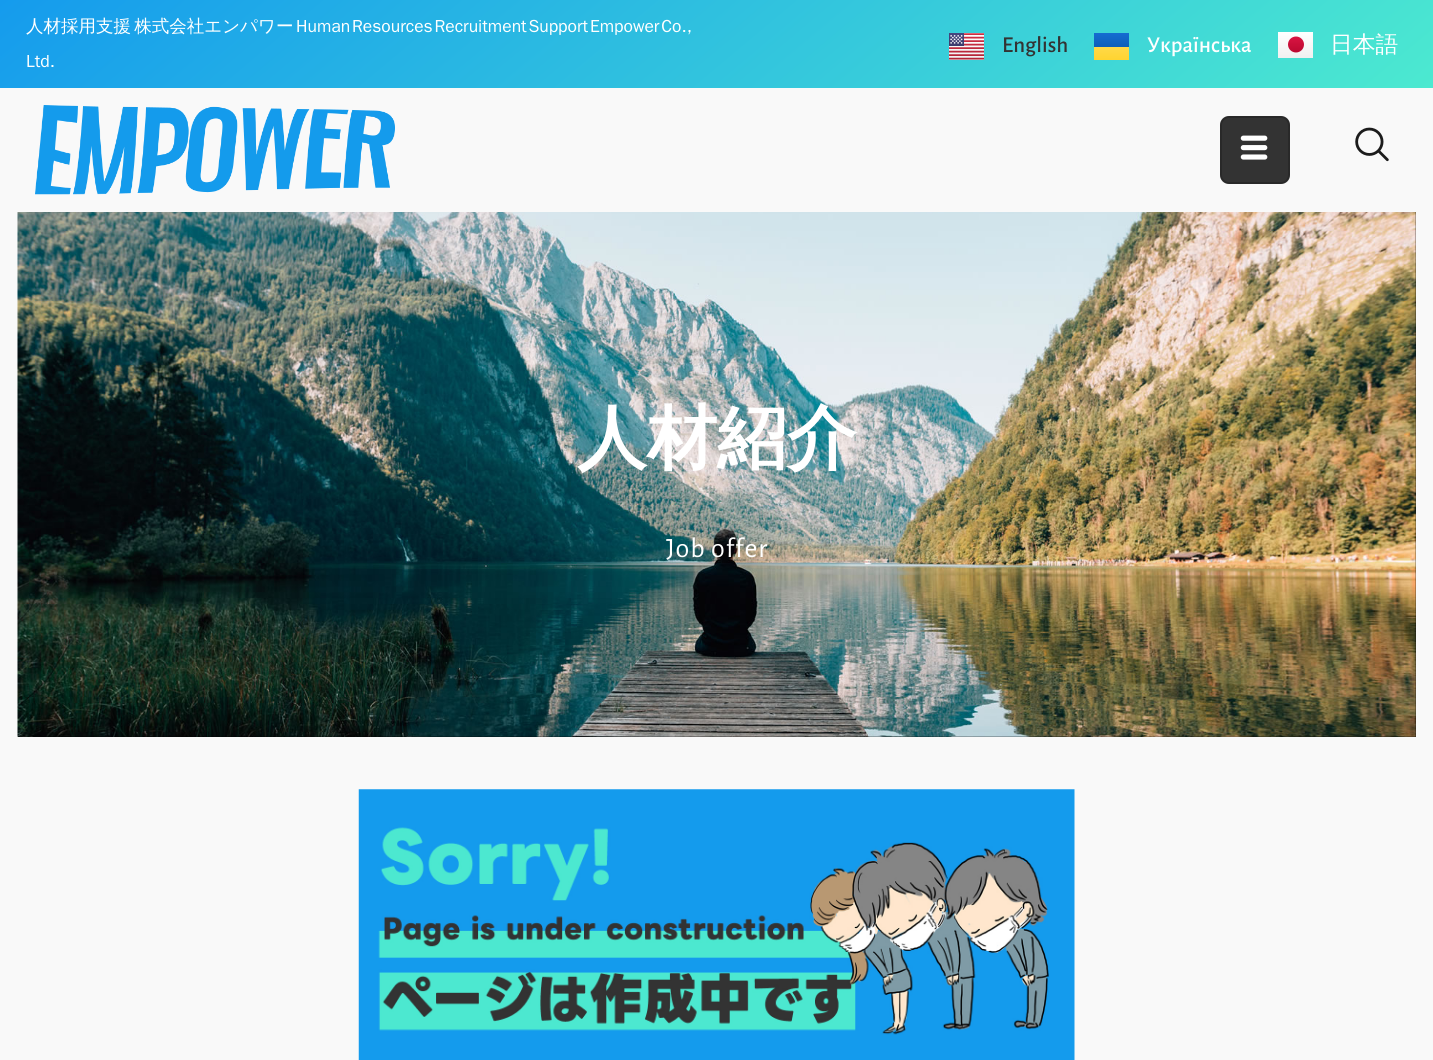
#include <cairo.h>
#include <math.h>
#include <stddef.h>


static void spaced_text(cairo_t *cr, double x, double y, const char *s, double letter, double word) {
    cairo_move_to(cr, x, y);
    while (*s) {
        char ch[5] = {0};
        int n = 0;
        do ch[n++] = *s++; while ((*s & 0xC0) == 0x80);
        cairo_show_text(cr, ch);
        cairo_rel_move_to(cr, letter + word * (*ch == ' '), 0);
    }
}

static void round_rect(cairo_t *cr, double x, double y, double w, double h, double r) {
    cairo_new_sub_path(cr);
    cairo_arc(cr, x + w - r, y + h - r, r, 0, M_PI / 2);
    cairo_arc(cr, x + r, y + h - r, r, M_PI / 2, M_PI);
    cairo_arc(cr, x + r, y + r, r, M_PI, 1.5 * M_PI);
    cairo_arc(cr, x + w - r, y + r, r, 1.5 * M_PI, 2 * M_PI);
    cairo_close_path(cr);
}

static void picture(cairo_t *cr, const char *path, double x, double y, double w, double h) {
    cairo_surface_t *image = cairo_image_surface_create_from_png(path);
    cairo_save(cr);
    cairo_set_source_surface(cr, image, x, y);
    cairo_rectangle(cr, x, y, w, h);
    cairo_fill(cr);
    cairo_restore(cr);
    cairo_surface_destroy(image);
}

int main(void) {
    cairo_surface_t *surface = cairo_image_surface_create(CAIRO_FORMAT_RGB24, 1433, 1060);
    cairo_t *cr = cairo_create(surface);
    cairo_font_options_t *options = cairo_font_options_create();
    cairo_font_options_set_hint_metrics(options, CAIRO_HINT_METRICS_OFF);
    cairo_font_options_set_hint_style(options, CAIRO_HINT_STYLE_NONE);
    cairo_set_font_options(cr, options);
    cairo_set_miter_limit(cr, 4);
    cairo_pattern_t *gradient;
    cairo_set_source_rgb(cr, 0.976, 0.976, 0.976);
    cairo_paint(cr);
    gradient = cairo_pattern_create_linear(399, -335, 1034, 422);
    cairo_pattern_add_color_stop_rgba(gradient, 0, 0.082, 0.608, 0.929, 1);
    cairo_pattern_add_color_stop_rgba(gradient, 1, 0.298, 0.914, 0.816, 1);
    cairo_set_source(cr, gradient);
    cairo_pattern_destroy(gradient);
    cairo_rectangle(cr, 0, 0, 1433, 88);
    cairo_fill(cr);
    cairo_select_font_face(cr, "WenQuanYi Zen Hei Medium", CAIRO_FONT_SLANT_NORMAL, CAIRO_FONT_WEIGHT_NORMAL);
    cairo_set_font_size(cr, 17.5);
    cairo_set_source_rgb(cr, 1, 1, 1);
    spaced_text(cr, 26, 32, "人材採用支援 株式会社エンパワー", 0, -2);
    spaced_text(cr, 296, 32, "Human Resources Recruitment Support Empower Co.,", 0, -3.5);
    cairo_move_to(cr, 26, 67);
    cairo_show_text(cr, "Ltd.");
    picture(cr, "img1.png", 949, 33, 35, 27);
    cairo_select_font_face(cr, "Alegreya Sans Medium", CAIRO_FONT_SLANT_NORMAL, CAIRO_FONT_WEIGHT_NORMAL);
    cairo_set_font_size(cr, 22.75);
    cairo_set_source_rgb(cr, 0.2, 0.2, 0.2);
    cairo_move_to(cr, 1002, 52);
    cairo_show_text(cr, "English");
    gradient = cairo_pattern_create_linear(1112, 33, 1112, 47);
    cairo_pattern_add_color_stop_rgba(gradient, 0, 0.082, 0.427, 0.82, 1);
    cairo_pattern_add_color_stop_rgba(gradient, 1, 0.051, 0.369, 0.725, 1);
    cairo_set_source(cr, gradient);
    cairo_pattern_destroy(gradient);
    cairo_rectangle(cr, 1094, 33, 35, 14);
    cairo_fill(cr);
    gradient = cairo_pattern_create_linear(1112, 47, 1112, 60);
    cairo_pattern_add_color_stop_rgba(gradient, 0, 1, 0.851, 0.282, 1);
    cairo_pattern_add_color_stop_rgba(gradient, 1, 1, 0.831, 0.188, 1);
    cairo_set_source(cr, gradient);
    cairo_pattern_destroy(gradient);
    cairo_rectangle(cr, 1094, 47, 35, 13);
    cairo_fill(cr);
    cairo_set_source_rgb(cr, 1, 1, 1);
    cairo_move_to(cr, 1147, 52);
    cairo_show_text(cr, "Українська");
    gradient = cairo_pattern_create_linear(1296, 32, 1296, 58);
    cairo_pattern_add_color_stop_rgba(gradient, 0, 1, 1, 1, 1);
    cairo_pattern_add_color_stop_rgba(gradient, 1, 0.941, 0.941, 0.941, 1);
    cairo_set_source(cr, gradient);
    cairo_pattern_destroy(gradient);
    cairo_rectangle(cr, 1278, 32, 35, 26);
    cairo_fill(cr);
    gradient = cairo_pattern_create_linear(1296, 37, 1296, 53);
    cairo_pattern_add_color_stop_rgba(gradient, 0, 0.847, 0.078, 0.255, 1);
    cairo_pattern_add_color_stop_rgba(gradient, 1, 0.733, 0.031, 0.192, 1);
    cairo_set_source(cr, gradient);
    cairo_pattern_destroy(gradient);
    cairo_arc(cr, 1296, 44.5, 8, 0, 2 * M_PI);
    cairo_fill(cr);
    cairo_select_font_face(cr, "WenQuanYi Zen Hei Medium", CAIRO_FONT_SLANT_NORMAL, CAIRO_FONT_WEIGHT_NORMAL);
    cairo_set_source_rgb(cr, 1, 1, 1);
    cairo_move_to(cr, 1330, 52);
    cairo_show_text(cr, "日本語");
    picture(cr, "img2.png", 35, 105, 360, 90);
    cairo_set_source_rgb(cr, 0.2, 0.2, 0.2);
    round_rect(cr, 1220, 116, 70, 68, 9);
    cairo_fill(cr);
    round_rect(cr, 1221, 117, 68, 66, 8);
    cairo_set_source_rgba(cr, 0, 0, 0, 0.2);
    cairo_stroke(cr);
    picture(cr, "img3.png", 1240, 135, 28, 25);
    picture(cr, "img4.png", 1355, 127, 34, 35);
    cairo_set_source_rgb(cr, 0, 0, 0);
    cairo_rectangle(cr, 18, 212, 1398, 525);
    cairo_fill(cr);
    picture(cr, "img5.png", 17, 212, 1399, 525);
    cairo_select_font_face(cr, "WenQuanYi Zen Hei", CAIRO_FONT_SLANT_NORMAL, CAIRO_FONT_WEIGHT_BOLD);
    cairo_set_font_size(cr, 70);
    cairo_set_source_rgb(cr, 1, 1, 1);
    cairo_move_to(cr, 577, 462);
    cairo_show_text(cr, "人材紹介");
    cairo_select_font_face(cr, "Alegreya Sans", CAIRO_FONT_SLANT_NORMAL, CAIRO_FONT_WEIGHT_NORMAL);
    cairo_set_font_size(cr, 28);
    spaced_text(cr, 666, 557, "Job offer", 0.9, 0);
    picture(cr, "img6.png", 358, 789, 717, 271);
    cairo_surface_write_to_png(surface, "page.png");
    cairo_font_options_destroy(options);
    cairo_destroy(cr);
    cairo_surface_destroy(surface);
    return 0;
}
